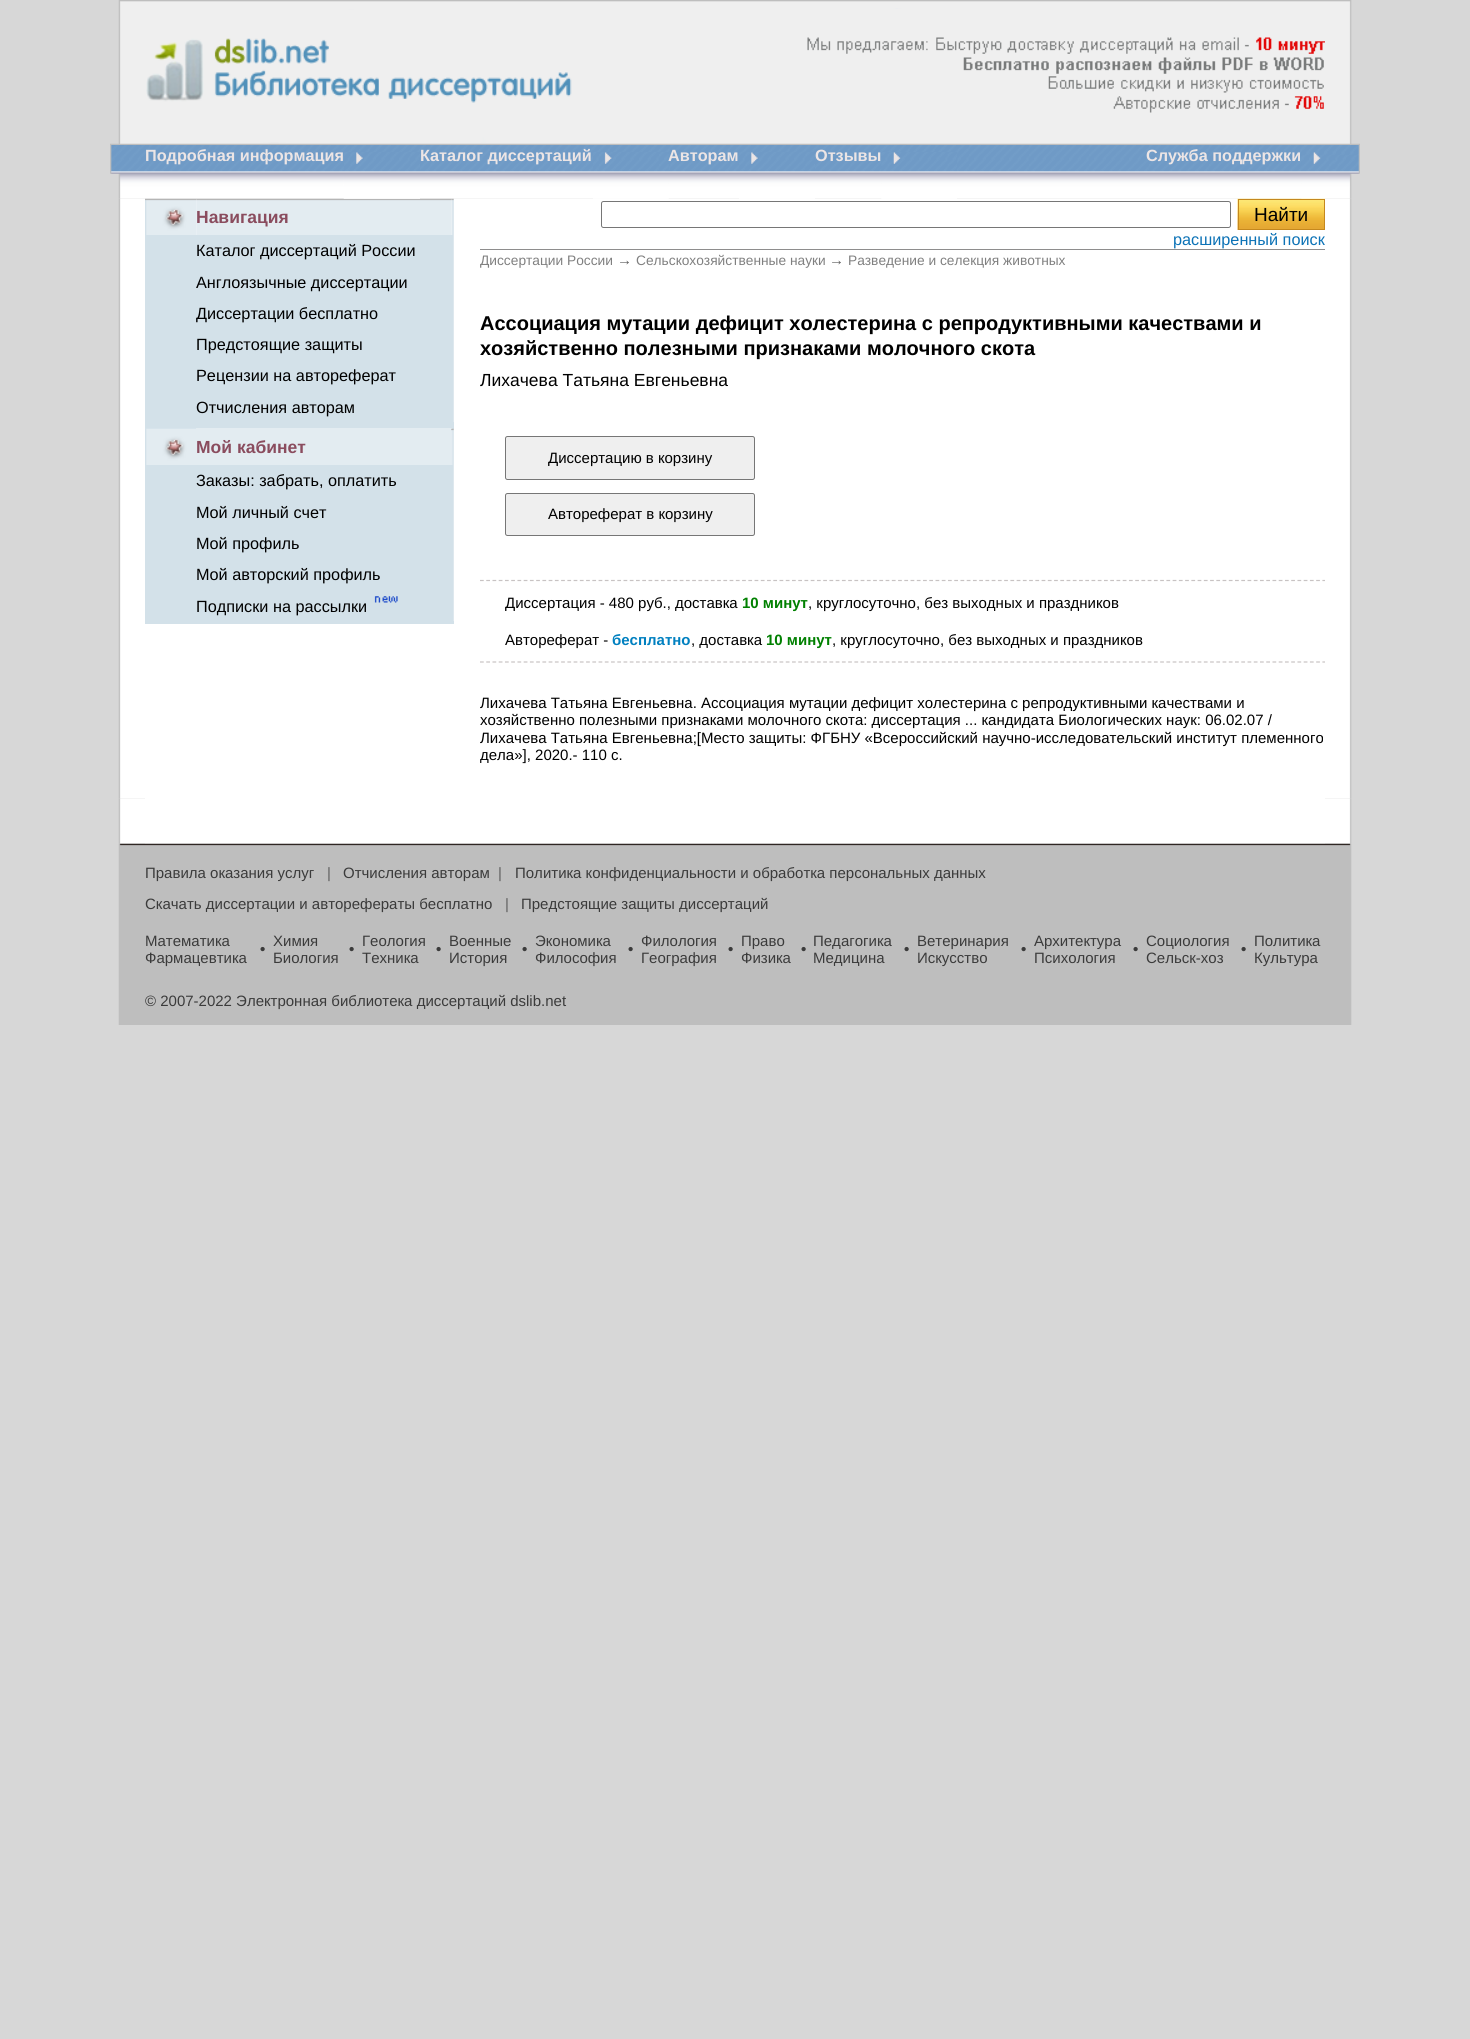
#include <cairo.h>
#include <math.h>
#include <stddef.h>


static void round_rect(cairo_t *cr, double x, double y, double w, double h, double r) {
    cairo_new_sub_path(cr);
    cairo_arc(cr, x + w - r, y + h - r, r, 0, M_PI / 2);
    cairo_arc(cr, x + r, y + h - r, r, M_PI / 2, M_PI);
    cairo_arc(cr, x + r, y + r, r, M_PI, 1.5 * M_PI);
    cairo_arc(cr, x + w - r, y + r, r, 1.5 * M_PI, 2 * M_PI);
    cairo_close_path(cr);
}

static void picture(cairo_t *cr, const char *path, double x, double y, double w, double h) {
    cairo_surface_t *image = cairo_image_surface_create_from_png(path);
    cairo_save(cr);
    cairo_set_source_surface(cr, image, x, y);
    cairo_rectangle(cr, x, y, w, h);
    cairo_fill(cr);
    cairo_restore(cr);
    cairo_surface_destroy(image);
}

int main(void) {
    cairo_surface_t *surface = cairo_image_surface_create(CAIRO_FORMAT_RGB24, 1470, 2039);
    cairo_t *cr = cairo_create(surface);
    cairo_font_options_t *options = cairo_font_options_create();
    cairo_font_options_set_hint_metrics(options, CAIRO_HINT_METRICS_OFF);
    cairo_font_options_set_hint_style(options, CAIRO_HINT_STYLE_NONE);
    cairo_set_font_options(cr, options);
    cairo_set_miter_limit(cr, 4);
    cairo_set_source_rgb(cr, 0.843, 0.843, 0.843);
    cairo_paint(cr);
    picture(cr, "img1.png", 110, 0, 35, 145);
    picture(cr, "img2.png", 145, 0, 1180, 145);
    picture(cr, "img3.png", 145, 10, 428, 132);
    picture(cr, "img4.png", 637, 9, 688, 135);
    picture(cr, "img5.png", 1325, 0, 35, 145);
    picture(cr, "img6.png", 110, 145, 35, 54);
    picture(cr, "img7.png", 145, 145, 1180, 54);
    cairo_select_font_face(cr, "Liberation Sans", CAIRO_FONT_SLANT_NORMAL, CAIRO_FONT_WEIGHT_BOLD);
    cairo_set_font_size(cr, 16.25);
    cairo_set_source_rgb(cr, 0.922, 0.898, 0.898);
    cairo_move_to(cr, 145, 161);
    cairo_show_text(cr, "Подробная информация");
    cairo_set_source_rgb(cr, 1, 1, 1);
    cairo_rectangle(cr, 145, 199, 1180, 645);
    cairo_fill(cr);
    picture(cr, "img16.png", 196, 198, 256, 37);
    picture(cr, "img8.png", 343, 152, 77, 47);
    cairo_set_source_rgb(cr, 0.922, 0.898, 0.898);
    cairo_move_to(cr, 420, 161);
    cairo_show_text(cr, "Каталог диссертаций");
    picture(cr, "img9.png", 593, 152, 76, 47);
    cairo_move_to(cr, 668, 161);
    cairo_show_text(cr, "Авторам");
    picture(cr, "img10.png", 739, 152, 76, 47);
    cairo_move_to(cr, 815, 161);
    cairo_show_text(cr, "Отзывы");
    picture(cr, "img11.png", 881, 152, 76, 47);
    cairo_move_to(cr, 1146, 161);
    cairo_show_text(cr, "Служба поддержки");
    picture(cr, "img12.png", 1301, 152, 24, 47);
    picture(cr, "img13.png", 1325, 145, 35, 54);
    picture(cr, "img14.png", 118, 199, 27, 600);
    picture(cr, "img15.png", 145, 198, 52, 37);
    cairo_set_font_size(cr, 17.5);
    cairo_set_source_rgb(cr, 0.541, 0.298, 0.369);
    cairo_move_to(cr, 196, 223);
    cairo_show_text(cr, "Навигация");
    picture(cr, "img17.png", 451, 198, 3, 37);
    cairo_set_source_rgb(cr, 0.827, 0.882, 0.914);
    cairo_rectangle(cr, 145, 235, 307, 187);
    cairo_fill(cr);
    picture(cr, "img18.png", 452, 235, 2, 187);
    cairo_select_font_face(cr, "Liberation Sans", CAIRO_FONT_SLANT_NORMAL, CAIRO_FONT_WEIGHT_NORMAL);
    cairo_set_font_size(cr, 16.25);
    cairo_set_source_rgb(cr, 0, 0, 0);
    cairo_move_to(cr, 196, 256);
    cairo_show_text(cr, "Каталог диссертаций России");
    cairo_move_to(cr, 196, 288);
    cairo_show_text(cr, "Англоязычные диссертации");
    cairo_move_to(cr, 196, 319);
    cairo_show_text(cr, "Диссертации бесплатно");
    cairo_move_to(cr, 196, 350);
    cairo_show_text(cr, "Предстоящие защиты");
    cairo_move_to(cr, 196, 381);
    cairo_show_text(cr, "Рецензии на автореферат");
    cairo_move_to(cr, 196, 413);
    cairo_show_text(cr, "Отчисления авторам");
    cairo_set_source_rgb(cr, 0.827, 0.882, 0.914);
    cairo_rectangle(cr, 145, 422, 309, 7);
    cairo_fill(cr);
    picture(cr, "img19.png", 145, 428, 51, 37);
    cairo_set_source_rgb(cr, 0.89, 0.925, 0.945);
    cairo_rectangle(cr, 196, 428, 256, 37);
    cairo_fill(cr);
    cairo_select_font_face(cr, "Liberation Sans", CAIRO_FONT_SLANT_NORMAL, CAIRO_FONT_WEIGHT_BOLD);
    cairo_set_font_size(cr, 17.5);
    cairo_set_source_rgb(cr, 0.541, 0.298, 0.369);
    cairo_move_to(cr, 196, 453);
    cairo_show_text(cr, "Мой кабинет");
    picture(cr, "img20.png", 451, 428, 3, 37);
    cairo_set_source_rgb(cr, 0.827, 0.882, 0.914);
    cairo_rectangle(cr, 145, 465, 307, 156);
    cairo_fill(cr);
    picture(cr, "img21.png", 452, 465, 2, 156);
    cairo_select_font_face(cr, "Liberation Sans", CAIRO_FONT_SLANT_NORMAL, CAIRO_FONT_WEIGHT_NORMAL);
    cairo_set_font_size(cr, 16.25);
    cairo_set_source_rgb(cr, 0, 0, 0);
    cairo_move_to(cr, 196, 486);
    cairo_show_text(cr, "Заказы: забрать, оплатить");
    cairo_move_to(cr, 196, 518);
    cairo_show_text(cr, "Мой личный счет");
    cairo_move_to(cr, 196, 549);
    cairo_show_text(cr, "Мой профиль");
    cairo_move_to(cr, 196, 580);
    cairo_show_text(cr, "Мой авторский профиль");
    cairo_move_to(cr, 196, 612);
    cairo_show_text(cr, "Подписки на рассылки");
    picture(cr, "img22.png", 374, 596, 24, 7);
    cairo_set_source_rgb(cr, 0.827, 0.882, 0.914);
    cairo_rectangle(cr, 145, 621, 309, 3);
    cairo_fill(cr);
    cairo_set_source_rgb(cr, 0.557, 0.553, 0.553);
    cairo_rectangle(cr, 480, 249, 845, 1);
    cairo_fill(cr);
    round_rect(cr, 601.5, 201.5, 629, 26, 2);
    cairo_set_source_rgb(cr, 0.463, 0.463, 0.463);
    cairo_set_line_width(cr, 1);
    cairo_stroke(cr);
    picture(cr, "img23.png", 1237, 198, 88, 32);
    cairo_rectangle(cr, 1238.5, 199.5, 86, 30);
    cairo_set_source_rgb(cr, 0.773, 0.533, 0.118);
    cairo_stroke(cr);
    cairo_set_font_size(cr, 19);
    cairo_set_source_rgb(cr, 0, 0, 0);
    cairo_move_to(cr, 1254, 221);
    cairo_show_text(cr, "Найти");
    picture(cr, "img24.png", 1325, 199, 27, 600);
    cairo_set_font_size(cr, 16.25);
    cairo_set_source_rgb(cr, 0.047, 0.447, 0.714);
    cairo_move_to(cr, 1173, 245);
    cairo_show_text(cr, "расширенный поиск");
    cairo_set_font_size(cr, 13.75);
    cairo_set_source_rgb(cr, 0.502, 0.502, 0.502);
    cairo_move_to(cr, 480, 265);
    cairo_show_text(cr, "Диссертации России");
    cairo_select_font_face(cr, "Liberation Serif", CAIRO_FONT_SLANT_ITALIC, CAIRO_FONT_WEIGHT_NORMAL);
    cairo_set_font_size(cr, 15);
    cairo_set_source_rgb(cr, 0.376, 0.376, 0.376);
    cairo_move_to(cr, 617, 265);
    cairo_show_text(cr, "→");
    cairo_select_font_face(cr, "Liberation Sans", CAIRO_FONT_SLANT_NORMAL, CAIRO_FONT_WEIGHT_NORMAL);
    cairo_set_font_size(cr, 13.75);
    cairo_set_source_rgb(cr, 0.502, 0.502, 0.502);
    cairo_move_to(cr, 636, 265);
    cairo_show_text(cr, "Сельскохозяйственные науки");
    cairo_select_font_face(cr, "Liberation Serif", CAIRO_FONT_SLANT_ITALIC, CAIRO_FONT_WEIGHT_NORMAL);
    cairo_set_font_size(cr, 15);
    cairo_set_source_rgb(cr, 0.376, 0.376, 0.376);
    cairo_move_to(cr, 829, 265);
    cairo_show_text(cr, "→");
    cairo_select_font_face(cr, "Liberation Sans", CAIRO_FONT_SLANT_NORMAL, CAIRO_FONT_WEIGHT_NORMAL);
    cairo_set_font_size(cr, 13.75);
    cairo_set_source_rgb(cr, 0.502, 0.502, 0.502);
    cairo_move_to(cr, 848, 265);
    cairo_show_text(cr, "Разведение и селекция животных");
    cairo_select_font_face(cr, "Liberation Sans", CAIRO_FONT_SLANT_NORMAL, CAIRO_FONT_WEIGHT_BOLD);
    cairo_set_font_size(cr, 20);
    cairo_set_source_rgb(cr, 0, 0, 0);
    cairo_move_to(cr, 480, 330);
    cairo_show_text(cr, "Ассоциация мутации дефицит холестерина с репродуктивными качествами и");
    cairo_move_to(cr, 480, 355);
    cairo_show_text(cr, "хозяйственно полезными признаками молочного скота");
    cairo_select_font_face(cr, "Liberation Sans", CAIRO_FONT_SLANT_NORMAL, CAIRO_FONT_WEIGHT_NORMAL);
    cairo_set_font_size(cr, 17.5);
    cairo_move_to(cr, 480, 386);
    cairo_show_text(cr, "Лихачева Татьяна Евгеньевна");
    cairo_set_source_rgb(cr, 0.937, 0.937, 0.937);
    round_rect(cr, 505.5, 436.5, 249, 43, 2);
    cairo_fill_preserve(cr);
    cairo_set_source_rgb(cr, 0.463, 0.463, 0.463);
    cairo_stroke(cr);
    cairo_set_font_size(cr, 15);
    cairo_set_source_rgb(cr, 0, 0, 0);
    cairo_move_to(cr, 548, 463);
    cairo_show_text(cr, "Диссертацию в корзину");
    cairo_set_source_rgb(cr, 0.937, 0.937, 0.937);
    round_rect(cr, 505.5, 493.5, 249, 42, 2);
    cairo_fill_preserve(cr);
    cairo_set_source_rgb(cr, 0.463, 0.463, 0.463);
    cairo_stroke(cr);
    cairo_set_source_rgb(cr, 0, 0, 0);
    cairo_move_to(cr, 548, 519);
    cairo_show_text(cr, "Автореферат в корзину");
    cairo_new_path(cr);
    cairo_move_to(cr, 480, 580.5);
    cairo_line_to(cr, 1325, 580.5);
    cairo_set_source_rgb(cr, 0.784, 0.765, 0.765);
    cairo_set_line_width(cr, 1.2);
    cairo_set_dash(cr, (double[]){3.75, 2.49}, 2, 0);
    cairo_stroke(cr);
    cairo_set_source_rgb(cr, 0, 0, 0);
    cairo_move_to(cr, 505, 608);
    cairo_show_text(cr, "Диссертация - 480 руб., доставка");
    cairo_select_font_face(cr, "Liberation Sans", CAIRO_FONT_SLANT_NORMAL, CAIRO_FONT_WEIGHT_BOLD);
    cairo_set_source_rgb(cr, 0, 0.502, 0);
    cairo_move_to(cr, 742, 608);
    cairo_show_text(cr, "10 минут");
    cairo_select_font_face(cr, "Liberation Sans", CAIRO_FONT_SLANT_NORMAL, CAIRO_FONT_WEIGHT_NORMAL);
    cairo_set_source_rgb(cr, 0, 0, 0);
    cairo_move_to(cr, 808, 608);
    cairo_show_text(cr, ", круглосуточно, без выходных и праздников");
    cairo_new_path(cr);
    cairo_move_to(cr, 480, 662);
    cairo_line_to(cr, 1325, 662);
    cairo_set_source_rgb(cr, 0.784, 0.765, 0.765);
    cairo_stroke(cr);
    cairo_set_source_rgb(cr, 0, 0, 0);
    cairo_move_to(cr, 505, 645);
    cairo_show_text(cr, "Автореферат -");
    cairo_select_font_face(cr, "Liberation Sans", CAIRO_FONT_SLANT_NORMAL, CAIRO_FONT_WEIGHT_BOLD);
    cairo_set_source_rgb(cr, 0, 0.502, 0.753);
    cairo_move_to(cr, 612, 645);
    cairo_show_text(cr, "бесплатно");
    cairo_select_font_face(cr, "Liberation Sans", CAIRO_FONT_SLANT_NORMAL, CAIRO_FONT_WEIGHT_NORMAL);
    cairo_set_source_rgb(cr, 0, 0, 0);
    cairo_move_to(cr, 691, 645);
    cairo_show_text(cr, ", доставка");
    cairo_select_font_face(cr, "Liberation Sans", CAIRO_FONT_SLANT_NORMAL, CAIRO_FONT_WEIGHT_BOLD);
    cairo_set_source_rgb(cr, 0, 0.502, 0);
    cairo_move_to(cr, 766, 645);
    cairo_show_text(cr, "10 минут");
    cairo_select_font_face(cr, "Liberation Sans", CAIRO_FONT_SLANT_NORMAL, CAIRO_FONT_WEIGHT_NORMAL);
    cairo_set_source_rgb(cr, 0, 0, 0);
    cairo_move_to(cr, 832, 645);
    cairo_show_text(cr, ", круглосуточно, без выходных и праздников");
    cairo_move_to(cr, 480, 708);
    cairo_show_text(cr, "Лихачева Татьяна Евгеньевна. Ассоциация мутации дефицит холестерина с репродуктивными качествами и");
    cairo_move_to(cr, 480, 725);
    cairo_show_text(cr, "хозяйственно полезными признаками молочного скота: диссертация ... кандидата Биологических наук: 06.02.07 /");
    cairo_move_to(cr, 480, 743);
    cairo_show_text(cr, "Лихачева Татьяна Евгеньевна;[Место защиты: ФГБНУ «Всероссийский научно-исследовательский институт племенного");
    cairo_move_to(cr, 480, 760);
    cairo_show_text(cr, "дела»], 2020.- 110 с.");
    picture(cr, "img25.png", 118, 799, 27, 45);
    picture(cr, "img26.png", 1325, 799, 27, 45);
    picture(cr, "img27.png", 118, 843, 27, 182);
    picture(cr, "img28.png", 145, 843, 1180, 182);
    cairo_set_source_rgb(cr, 0.231, 0.231, 0.231);
    cairo_move_to(cr, 145, 878);
    cairo_show_text(cr, "Правила оказания услуг");
    cairo_set_source_rgb(cr, 0.376, 0.376, 0.376);
    cairo_move_to(cr, 327, 878);
    cairo_show_text(cr, "|");
    cairo_set_source_rgb(cr, 0.231, 0.231, 0.231);
    cairo_move_to(cr, 343, 878);
    cairo_show_text(cr, "Отчисления авторам");
    cairo_set_source_rgb(cr, 0.376, 0.376, 0.376);
    cairo_move_to(cr, 498, 878);
    cairo_show_text(cr, "|");
    cairo_set_source_rgb(cr, 0.231, 0.231, 0.231);
    cairo_move_to(cr, 515, 878);
    cairo_show_text(cr, "Политика конфиденциальности и обработка персональных данных");
    cairo_move_to(cr, 145, 909);
    cairo_show_text(cr, "Cкачать диссертации и авторефераты бесплатно");
    cairo_set_source_rgb(cr, 0.376, 0.376, 0.376);
    cairo_move_to(cr, 505, 909);
    cairo_show_text(cr, "|");
    cairo_set_source_rgb(cr, 0.231, 0.231, 0.231);
    cairo_move_to(cr, 521, 909);
    cairo_show_text(cr, "Предстоящие защиты диссертаций");
    cairo_move_to(cr, 145, 946);
    cairo_show_text(cr, "Математика");
    cairo_move_to(cr, 145, 963);
    cairo_show_text(cr, "Фармацевтика");
    cairo_select_font_face(cr, "Liberation Sans", CAIRO_FONT_SLANT_NORMAL, CAIRO_FONT_WEIGHT_BOLD);
    cairo_move_to(cr, 260, 954);
    cairo_show_text(cr, "•");
    cairo_select_font_face(cr, "Liberation Sans", CAIRO_FONT_SLANT_NORMAL, CAIRO_FONT_WEIGHT_NORMAL);
    cairo_move_to(cr, 273, 946);
    cairo_show_text(cr, "Химия");
    cairo_move_to(cr, 273, 963);
    cairo_show_text(cr, "Биология");
    cairo_select_font_face(cr, "Liberation Sans", CAIRO_FONT_SLANT_NORMAL, CAIRO_FONT_WEIGHT_BOLD);
    cairo_move_to(cr, 349, 954);
    cairo_show_text(cr, "•");
    cairo_select_font_face(cr, "Liberation Sans", CAIRO_FONT_SLANT_NORMAL, CAIRO_FONT_WEIGHT_NORMAL);
    cairo_move_to(cr, 362, 946);
    cairo_show_text(cr, "Геология");
    cairo_move_to(cr, 362, 963);
    cairo_show_text(cr, "Техника");
    cairo_select_font_face(cr, "Liberation Sans", CAIRO_FONT_SLANT_NORMAL, CAIRO_FONT_WEIGHT_BOLD);
    cairo_move_to(cr, 436, 954);
    cairo_show_text(cr, "•");
    cairo_select_font_face(cr, "Liberation Sans", CAIRO_FONT_SLANT_NORMAL, CAIRO_FONT_WEIGHT_NORMAL);
    cairo_move_to(cr, 449, 946);
    cairo_show_text(cr, "Военные");
    cairo_move_to(cr, 449, 963);
    cairo_show_text(cr, "История");
    cairo_select_font_face(cr, "Liberation Sans", CAIRO_FONT_SLANT_NORMAL, CAIRO_FONT_WEIGHT_BOLD);
    cairo_move_to(cr, 522, 954);
    cairo_show_text(cr, "•");
    cairo_select_font_face(cr, "Liberation Sans", CAIRO_FONT_SLANT_NORMAL, CAIRO_FONT_WEIGHT_NORMAL);
    cairo_move_to(cr, 535, 946);
    cairo_show_text(cr, "Экономика");
    cairo_move_to(cr, 535, 963);
    cairo_show_text(cr, "Философия");
    cairo_select_font_face(cr, "Liberation Sans", CAIRO_FONT_SLANT_NORMAL, CAIRO_FONT_WEIGHT_BOLD);
    cairo_move_to(cr, 628, 954);
    cairo_show_text(cr, "•");
    cairo_select_font_face(cr, "Liberation Sans", CAIRO_FONT_SLANT_NORMAL, CAIRO_FONT_WEIGHT_NORMAL);
    cairo_move_to(cr, 641, 946);
    cairo_show_text(cr, "Филология");
    cairo_move_to(cr, 641, 963);
    cairo_show_text(cr, "География");
    cairo_select_font_face(cr, "Liberation Sans", CAIRO_FONT_SLANT_NORMAL, CAIRO_FONT_WEIGHT_BOLD);
    cairo_move_to(cr, 728, 954);
    cairo_show_text(cr, "•");
    cairo_select_font_face(cr, "Liberation Sans", CAIRO_FONT_SLANT_NORMAL, CAIRO_FONT_WEIGHT_NORMAL);
    cairo_move_to(cr, 741, 946);
    cairo_show_text(cr, "Право");
    cairo_move_to(cr, 741, 963);
    cairo_show_text(cr, "Физика");
    cairo_select_font_face(cr, "Liberation Sans", CAIRO_FONT_SLANT_NORMAL, CAIRO_FONT_WEIGHT_BOLD);
    cairo_move_to(cr, 801, 954);
    cairo_show_text(cr, "•");
    cairo_select_font_face(cr, "Liberation Sans", CAIRO_FONT_SLANT_NORMAL, CAIRO_FONT_WEIGHT_NORMAL);
    cairo_move_to(cr, 813, 946);
    cairo_show_text(cr, "Педагогика");
    cairo_move_to(cr, 813, 963);
    cairo_show_text(cr, "Медицина");
    cairo_select_font_face(cr, "Liberation Sans", CAIRO_FONT_SLANT_NORMAL, CAIRO_FONT_WEIGHT_BOLD);
    cairo_move_to(cr, 904, 954);
    cairo_show_text(cr, "•");
    cairo_select_font_face(cr, "Liberation Sans", CAIRO_FONT_SLANT_NORMAL, CAIRO_FONT_WEIGHT_NORMAL);
    cairo_move_to(cr, 917, 946);
    cairo_show_text(cr, "Ветеринария");
    cairo_move_to(cr, 917, 963);
    cairo_show_text(cr, "Искусство");
    cairo_select_font_face(cr, "Liberation Sans", CAIRO_FONT_SLANT_NORMAL, CAIRO_FONT_WEIGHT_BOLD);
    cairo_move_to(cr, 1021, 954);
    cairo_show_text(cr, "•");
    cairo_select_font_face(cr, "Liberation Sans", CAIRO_FONT_SLANT_NORMAL, CAIRO_FONT_WEIGHT_NORMAL);
    cairo_move_to(cr, 1034, 946);
    cairo_show_text(cr, "Архитектура");
    cairo_move_to(cr, 1034, 963);
    cairo_show_text(cr, "Психология");
    cairo_select_font_face(cr, "Liberation Sans", CAIRO_FONT_SLANT_NORMAL, CAIRO_FONT_WEIGHT_BOLD);
    cairo_move_to(cr, 1133, 954);
    cairo_show_text(cr, "•");
    cairo_select_font_face(cr, "Liberation Sans", CAIRO_FONT_SLANT_NORMAL, CAIRO_FONT_WEIGHT_NORMAL);
    cairo_move_to(cr, 1146, 946);
    cairo_show_text(cr, "Социология");
    cairo_move_to(cr, 1146, 963);
    cairo_show_text(cr, "Сельск-хоз");
    cairo_select_font_face(cr, "Liberation Sans", CAIRO_FONT_SLANT_NORMAL, CAIRO_FONT_WEIGHT_BOLD);
    cairo_move_to(cr, 1241, 954);
    cairo_show_text(cr, "•");
    cairo_select_font_face(cr, "Liberation Sans", CAIRO_FONT_SLANT_NORMAL, CAIRO_FONT_WEIGHT_NORMAL);
    cairo_move_to(cr, 1254, 946);
    cairo_show_text(cr, "Политика");
    cairo_move_to(cr, 1254, 963);
    cairo_show_text(cr, "Культура");
    cairo_move_to(cr, 145, 1006);
    cairo_show_text(cr, "© 2007-2022 Электронная библиотека диссертаций dslib.net");
    picture(cr, "img29.png", 1325, 843, 27, 182);
    cairo_surface_write_to_png(surface, "page.png");
    cairo_font_options_destroy(options);
    cairo_destroy(cr);
    cairo_surface_destroy(surface);
    return 0;
}
